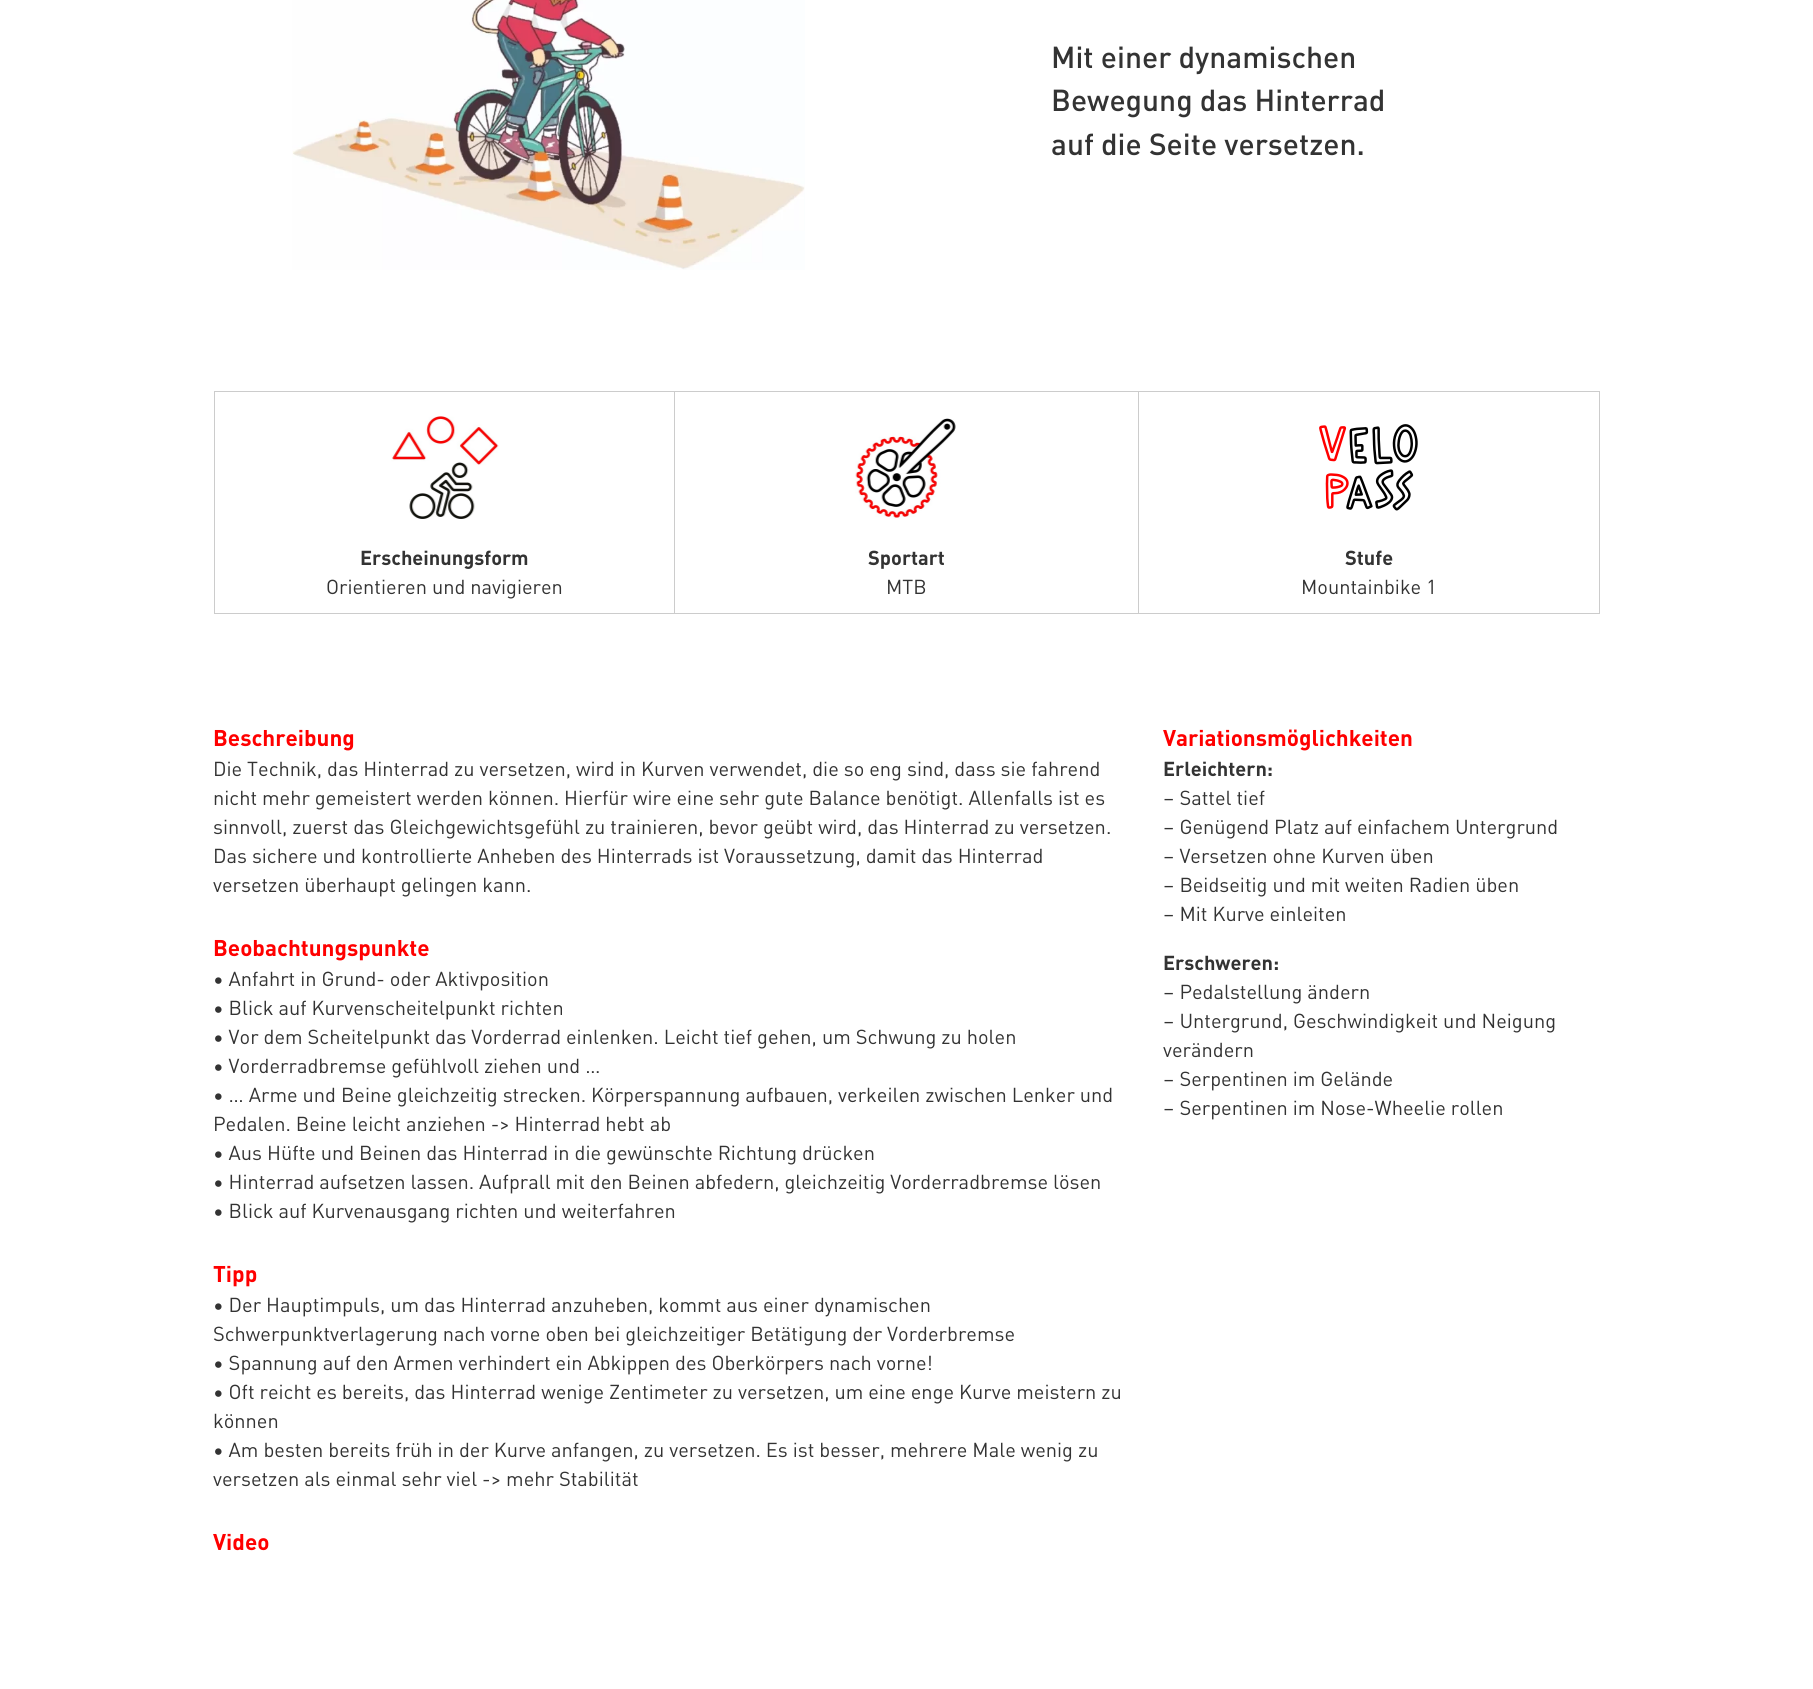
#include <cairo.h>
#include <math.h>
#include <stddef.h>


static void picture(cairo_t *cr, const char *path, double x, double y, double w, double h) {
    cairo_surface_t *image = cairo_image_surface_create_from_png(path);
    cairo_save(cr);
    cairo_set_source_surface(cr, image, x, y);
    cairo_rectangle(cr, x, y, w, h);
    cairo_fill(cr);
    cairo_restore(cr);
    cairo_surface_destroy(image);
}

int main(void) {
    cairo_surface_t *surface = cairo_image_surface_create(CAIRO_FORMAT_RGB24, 1813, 1689);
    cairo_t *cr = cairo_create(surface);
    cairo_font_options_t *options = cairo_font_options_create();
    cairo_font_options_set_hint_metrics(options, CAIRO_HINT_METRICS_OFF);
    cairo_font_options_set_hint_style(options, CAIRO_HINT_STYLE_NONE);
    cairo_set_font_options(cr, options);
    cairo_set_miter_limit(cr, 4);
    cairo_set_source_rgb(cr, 1, 1, 1);
    cairo_paint(cr);
    picture(cr, "img1.png", 292, 0, 513, 270);
    cairo_select_font_face(cr, "DIN Medium", CAIRO_FONT_SLANT_NORMAL, CAIRO_FONT_WEIGHT_NORMAL);
    cairo_set_font_size(cr, 30);
    cairo_set_source_rgb(cr, 0.2, 0.2, 0.2);
    cairo_move_to(cr, 1051, 68);
    cairo_show_text(cr, "Mit einer dynamischen");
    cairo_move_to(cr, 1051, 111);
    cairo_show_text(cr, "Bewegung das Hinterrad");
    cairo_move_to(cr, 1051, 155);
    cairo_show_text(cr, "auf die Seite versetzen.");
    cairo_rectangle(cr, 214.5, 391.5, 460, 222);
    cairo_set_source_rgb(cr, 0.8, 0.8, 0.8);
    cairo_set_line_width(cr, 1);
    cairo_stroke(cr);
    picture(cr, "img2.png", 391, 416, 108, 103);
    cairo_select_font_face(cr, "DIN", CAIRO_FONT_SLANT_NORMAL, CAIRO_FONT_WEIGHT_BOLD);
    cairo_set_font_size(cr, 20);
    cairo_set_source_rgb(cr, 0.2, 0.2, 0.2);
    cairo_move_to(cr, 360, 565);
    cairo_show_text(cr, "Erscheinungsform");
    cairo_select_font_face(cr, "DIN", CAIRO_FONT_SLANT_NORMAL, CAIRO_FONT_WEIGHT_NORMAL);
    cairo_move_to(cr, 326, 594);
    cairo_show_text(cr, "Orientieren und navigieren");
    cairo_set_source_rgb(cr, 0.8, 0.8, 0.8);
    cairo_rectangle(cr, 675, 391, 463, 1);
    cairo_fill(cr);
    cairo_rectangle(cr, 675, 613, 463, 1);
    cairo_fill(cr);
    picture(cr, "img3.png", 855, 418, 101, 101);
    cairo_select_font_face(cr, "DIN", CAIRO_FONT_SLANT_NORMAL, CAIRO_FONT_WEIGHT_BOLD);
    cairo_set_source_rgb(cr, 0.2, 0.2, 0.2);
    cairo_move_to(cr, 868, 565);
    cairo_show_text(cr, "Sportart");
    cairo_select_font_face(cr, "DIN", CAIRO_FONT_SLANT_NORMAL, CAIRO_FONT_WEIGHT_NORMAL);
    cairo_move_to(cr, 886, 594);
    cairo_show_text(cr, "MTB");
    cairo_rectangle(cr, 1138.5, 391.5, 461, 222);
    cairo_set_source_rgb(cr, 0.8, 0.8, 0.8);
    cairo_stroke(cr);
    picture(cr, "img4.png", 1319, 424, 99, 87);
    cairo_select_font_face(cr, "DIN", CAIRO_FONT_SLANT_NORMAL, CAIRO_FONT_WEIGHT_BOLD);
    cairo_set_source_rgb(cr, 0.2, 0.2, 0.2);
    cairo_move_to(cr, 1345, 565);
    cairo_show_text(cr, "Stufe");
    cairo_select_font_face(cr, "DIN", CAIRO_FONT_SLANT_NORMAL, CAIRO_FONT_WEIGHT_NORMAL);
    cairo_move_to(cr, 1301, 594);
    cairo_show_text(cr, "Mountainbike 1");
    cairo_select_font_face(cr, "DIN", CAIRO_FONT_SLANT_NORMAL, CAIRO_FONT_WEIGHT_BOLD);
    cairo_set_font_size(cr, 22.5);
    cairo_set_source_rgb(cr, 1, 0, 0);
    cairo_move_to(cr, 213, 746);
    cairo_show_text(cr, "Beschreibung");
    cairo_select_font_face(cr, "DIN", CAIRO_FONT_SLANT_NORMAL, CAIRO_FONT_WEIGHT_NORMAL);
    cairo_set_font_size(cr, 20);
    cairo_set_source_rgb(cr, 0.2, 0.2, 0.2);
    cairo_move_to(cr, 213, 776);
    cairo_show_text(cr, "Die Technik, das Hinterrad zu versetzen, wird in Kurven verwendet, die so eng sind, dass sie fahrend");
    cairo_move_to(cr, 213, 805);
    cairo_show_text(cr, "nicht mehr gemeistert werden können. Hierfür wire eine sehr gute Balance benötigt. Allenfalls ist es");
    cairo_move_to(cr, 213, 834);
    cairo_show_text(cr, "sinnvoll, zuerst das Gleichgewichtsgefühl zu trainieren, bevor geübt wird, das Hinterrad zu versetzen.");
    cairo_move_to(cr, 213, 863);
    cairo_show_text(cr, "Das sichere und kontrollierte Anheben des Hinterrads ist Voraussetzung, damit das Hinterrad");
    cairo_move_to(cr, 213, 892);
    cairo_show_text(cr, "versetzen überhaupt gelingen kann.");
    cairo_select_font_face(cr, "DIN", CAIRO_FONT_SLANT_NORMAL, CAIRO_FONT_WEIGHT_BOLD);
    cairo_set_font_size(cr, 22.5);
    cairo_set_source_rgb(cr, 1, 0, 0);
    cairo_move_to(cr, 213, 956);
    cairo_show_text(cr, "Beobachtungspunkte");
    cairo_select_font_face(cr, "DIN", CAIRO_FONT_SLANT_NORMAL, CAIRO_FONT_WEIGHT_NORMAL);
    cairo_set_font_size(cr, 20);
    cairo_set_source_rgb(cr, 0.2, 0.2, 0.2);
    cairo_move_to(cr, 213, 986);
    cairo_show_text(cr, "• Anfahrt in Grund- oder Aktivposition");
    cairo_move_to(cr, 213, 1015);
    cairo_show_text(cr, "• Blick auf Kurvenscheitelpunkt richten");
    cairo_move_to(cr, 213, 1044);
    cairo_show_text(cr, "• Vor dem Scheitelpunkt das Vorderrad einlenken. Leicht tief gehen, um Schwung zu holen");
    cairo_move_to(cr, 213, 1073);
    cairo_show_text(cr, "• Vorderradbremse gefühlvoll ziehen und …");
    cairo_move_to(cr, 213, 1102);
    cairo_show_text(cr, "• … Arme und Beine gleichzeitig strecken. Körperspannung aufbauen, verkeilen zwischen Lenker und");
    cairo_move_to(cr, 213, 1131);
    cairo_show_text(cr, "Pedalen. Beine leicht anziehen -> Hinterrad hebt ab");
    cairo_move_to(cr, 213, 1160);
    cairo_show_text(cr, "• Aus Hüfte und Beinen das Hinterrad in die gewünschte Richtung drücken");
    cairo_move_to(cr, 213, 1189);
    cairo_show_text(cr, "• Hinterrad aufsetzen lassen. Aufprall mit den Beinen abfedern, gleichzeitig Vorderradbremse lösen");
    cairo_move_to(cr, 213, 1218);
    cairo_show_text(cr, "• Blick auf Kurvenausgang richten und weiterfahren");
    cairo_select_font_face(cr, "DIN", CAIRO_FONT_SLANT_NORMAL, CAIRO_FONT_WEIGHT_BOLD);
    cairo_set_font_size(cr, 22.5);
    cairo_set_source_rgb(cr, 1, 0, 0);
    cairo_move_to(cr, 213, 1282);
    cairo_show_text(cr, "Tipp");
    cairo_select_font_face(cr, "DIN", CAIRO_FONT_SLANT_NORMAL, CAIRO_FONT_WEIGHT_NORMAL);
    cairo_set_font_size(cr, 20);
    cairo_set_source_rgb(cr, 0.2, 0.2, 0.2);
    cairo_move_to(cr, 213, 1312);
    cairo_show_text(cr, "• Der Hauptimpuls, um das Hinterrad anzuheben, kommt aus einer dynamischen");
    cairo_move_to(cr, 213, 1341);
    cairo_show_text(cr, "Schwerpunktverlagerung nach vorne oben bei gleichzeitiger Betätigung der Vorderbremse");
    cairo_move_to(cr, 213, 1370);
    cairo_show_text(cr, "• Spannung auf den Armen verhindert ein Abkippen des Oberkörpers nach vorne!");
    cairo_move_to(cr, 213, 1399);
    cairo_show_text(cr, "• Oft reicht es bereits, das Hinterrad wenige Zentimeter zu versetzen, um eine enge Kurve meistern zu");
    cairo_move_to(cr, 213, 1428);
    cairo_show_text(cr, "können");
    cairo_move_to(cr, 213, 1457);
    cairo_show_text(cr, "• Am besten bereits früh in der Kurve anfangen, zu versetzen. Es ist besser, mehrere Male wenig zu");
    cairo_move_to(cr, 213, 1486);
    cairo_show_text(cr, "versetzen als einmal sehr viel -> mehr Stabilität");
    cairo_select_font_face(cr, "DIN", CAIRO_FONT_SLANT_NORMAL, CAIRO_FONT_WEIGHT_BOLD);
    cairo_set_font_size(cr, 22.5);
    cairo_set_source_rgb(cr, 1, 0, 0);
    cairo_move_to(cr, 213, 1550);
    cairo_show_text(cr, "Video");
    cairo_move_to(cr, 1163, 746);
    cairo_show_text(cr, "Variationsmöglichkeiten");
    cairo_set_font_size(cr, 20);
    cairo_set_source_rgb(cr, 0.2, 0.2, 0.2);
    cairo_move_to(cr, 1163, 776);
    cairo_show_text(cr, "Erleichtern:");
    cairo_select_font_face(cr, "DIN", CAIRO_FONT_SLANT_NORMAL, CAIRO_FONT_WEIGHT_NORMAL);
    cairo_move_to(cr, 1163, 805);
    cairo_show_text(cr, "– Sattel tief");
    cairo_move_to(cr, 1163, 834);
    cairo_show_text(cr, "– Genügend Platz auf einfachem Untergrund");
    cairo_move_to(cr, 1163, 863);
    cairo_show_text(cr, "– Versetzen ohne Kurven üben");
    cairo_move_to(cr, 1163, 892);
    cairo_show_text(cr, "– Beidseitig und mit weiten Radien üben");
    cairo_move_to(cr, 1163, 921);
    cairo_show_text(cr, "– Mit Kurve einleiten");
    cairo_select_font_face(cr, "DIN", CAIRO_FONT_SLANT_NORMAL, CAIRO_FONT_WEIGHT_BOLD);
    cairo_move_to(cr, 1163, 970);
    cairo_show_text(cr, "Erschweren:");
    cairo_select_font_face(cr, "DIN", CAIRO_FONT_SLANT_NORMAL, CAIRO_FONT_WEIGHT_NORMAL);
    cairo_move_to(cr, 1163, 999);
    cairo_show_text(cr, "– Pedalstellung ändern");
    cairo_move_to(cr, 1163, 1028);
    cairo_show_text(cr, "– Untergrund, Geschwindigkeit und Neigung");
    cairo_move_to(cr, 1163, 1057);
    cairo_show_text(cr, "verändern");
    cairo_move_to(cr, 1163, 1086);
    cairo_show_text(cr, "– Serpentinen im Gelände");
    cairo_move_to(cr, 1163, 1115);
    cairo_show_text(cr, "– Serpentinen im Nose-Wheelie rollen");
    cairo_surface_write_to_png(surface, "page.png");
    cairo_font_options_destroy(options);
    cairo_destroy(cr);
    cairo_surface_destroy(surface);
    return 0;
}
